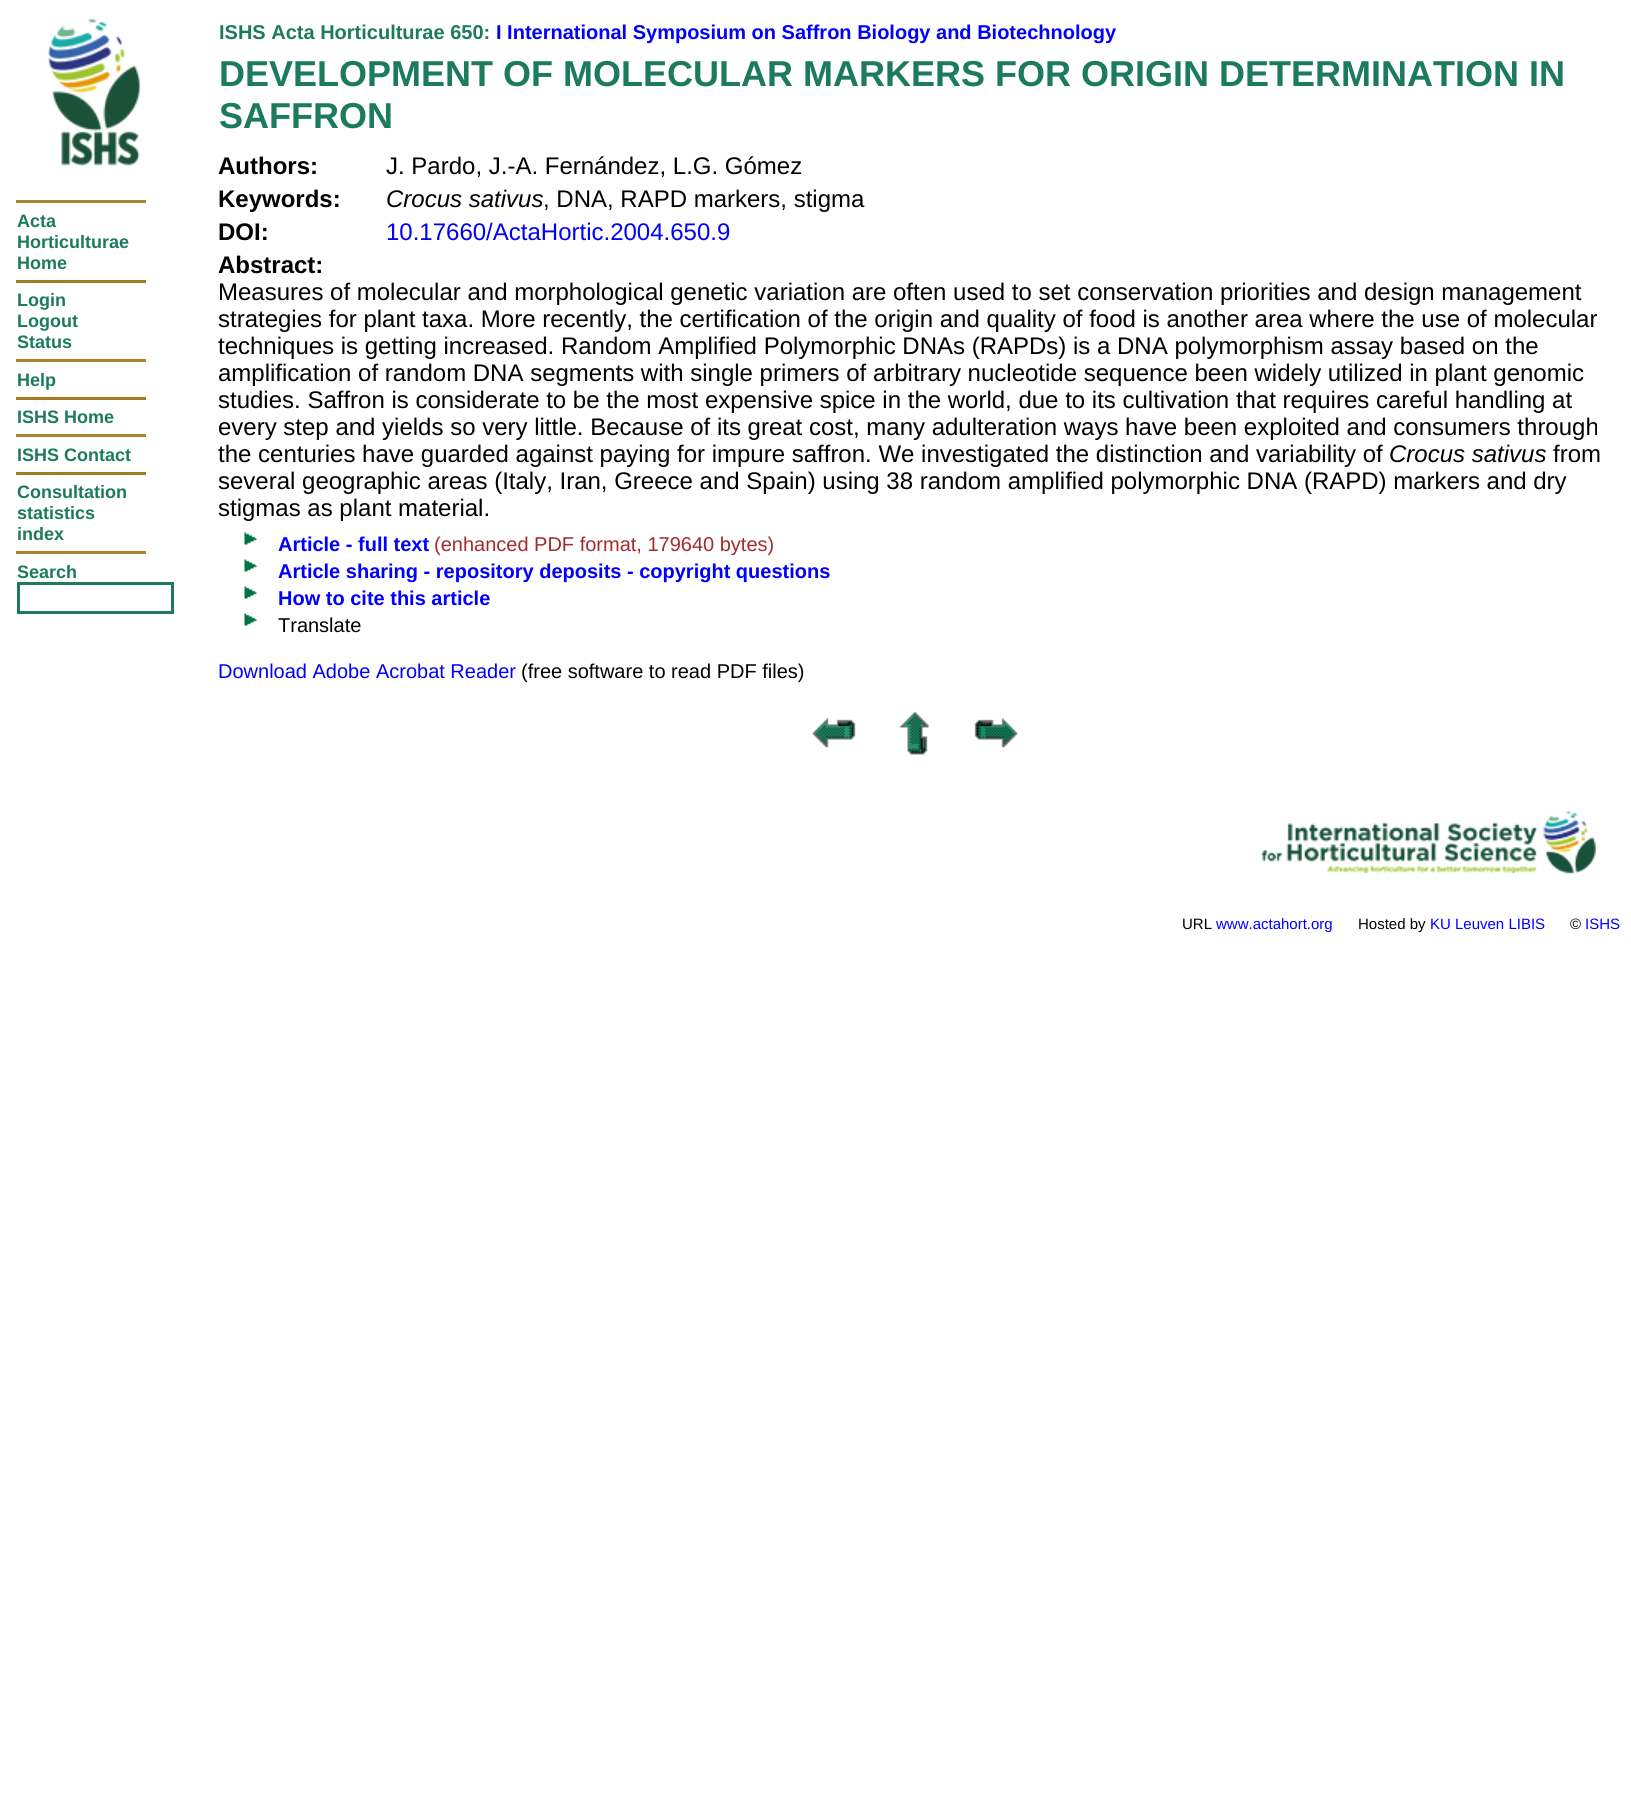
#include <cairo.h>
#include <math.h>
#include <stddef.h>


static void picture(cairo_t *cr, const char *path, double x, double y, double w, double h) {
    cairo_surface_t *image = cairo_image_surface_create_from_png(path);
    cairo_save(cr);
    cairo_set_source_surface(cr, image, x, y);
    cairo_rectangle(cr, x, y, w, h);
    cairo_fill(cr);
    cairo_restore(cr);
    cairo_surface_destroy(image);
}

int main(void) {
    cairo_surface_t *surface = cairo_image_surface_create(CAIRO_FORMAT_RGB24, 1631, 1805);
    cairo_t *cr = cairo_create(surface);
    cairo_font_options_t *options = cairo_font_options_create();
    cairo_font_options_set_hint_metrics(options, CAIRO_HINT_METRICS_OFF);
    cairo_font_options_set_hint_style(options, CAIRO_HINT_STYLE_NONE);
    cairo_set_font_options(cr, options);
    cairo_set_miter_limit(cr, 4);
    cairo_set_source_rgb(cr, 1, 1, 1);
    cairo_paint(cr);
    picture(cr, "img1.png", 47, 18, 94, 148);
    cairo_set_source_rgb(cr, 0.675, 0.51, 0.188);
    cairo_rectangle(cr, 16, 200, 130, 3);
    cairo_fill(cr);
    cairo_select_font_face(cr, "Liberation Sans", CAIRO_FONT_SLANT_NORMAL, CAIRO_FONT_WEIGHT_BOLD);
    cairo_set_font_size(cr, 18);
    cairo_set_source_rgb(cr, 0.11, 0.478, 0.373);
    cairo_move_to(cr, 17, 227);
    cairo_show_text(cr, "Acta");
    cairo_move_to(cr, 17, 248);
    cairo_show_text(cr, "Horticulturae");
    cairo_move_to(cr, 17, 269);
    cairo_show_text(cr, "Home");
    cairo_set_source_rgb(cr, 0.647, 0.478, 0.129);
    cairo_rectangle(cr, 16, 280, 130, 3);
    cairo_fill(cr);
    cairo_set_source_rgb(cr, 0.11, 0.478, 0.373);
    cairo_move_to(cr, 17, 306);
    cairo_show_text(cr, "Login");
    cairo_move_to(cr, 17, 327);
    cairo_show_text(cr, "Logout");
    cairo_move_to(cr, 17, 348);
    cairo_show_text(cr, "Status");
    cairo_set_source_rgb(cr, 0.675, 0.51, 0.188);
    cairo_rectangle(cr, 16, 359, 130, 3);
    cairo_fill(cr);
    cairo_set_source_rgb(cr, 0.11, 0.478, 0.373);
    cairo_move_to(cr, 17, 386);
    cairo_show_text(cr, "Help");
    cairo_set_source_rgb(cr, 0.647, 0.478, 0.129);
    cairo_rectangle(cr, 16, 397, 130, 3);
    cairo_fill(cr);
    cairo_set_source_rgb(cr, 0.11, 0.478, 0.373);
    cairo_move_to(cr, 17, 423);
    cairo_show_text(cr, "ISHS Home");
    cairo_set_source_rgb(cr, 0.675, 0.51, 0.188);
    cairo_rectangle(cr, 16, 434, 130, 3);
    cairo_fill(cr);
    cairo_set_source_rgb(cr, 0.11, 0.478, 0.373);
    cairo_move_to(cr, 17, 461);
    cairo_show_text(cr, "ISHS Contact");
    cairo_set_source_rgb(cr, 0.647, 0.478, 0.129);
    cairo_rectangle(cr, 16, 472, 130, 3);
    cairo_fill(cr);
    cairo_set_source_rgb(cr, 0.11, 0.478, 0.373);
    cairo_move_to(cr, 17, 498);
    cairo_show_text(cr, "Consultation");
    cairo_move_to(cr, 17, 519);
    cairo_show_text(cr, "statistics");
    cairo_move_to(cr, 17, 540);
    cairo_show_text(cr, "index");
    cairo_set_source_rgb(cr, 0.675, 0.51, 0.188);
    cairo_rectangle(cr, 16, 551, 130, 3);
    cairo_fill(cr);
    cairo_set_source_rgb(cr, 0.11, 0.478, 0.373);
    cairo_move_to(cr, 17, 578);
    cairo_show_text(cr, "Search");
    cairo_rectangle(cr, 18.5, 583.5, 154, 29);
    cairo_set_line_width(cr, 3);
    cairo_stroke(cr);
    cairo_set_font_size(cr, 20);
    cairo_move_to(cr, 219, 39);
    cairo_show_text(cr, "ISHS Acta Horticulturae 650:");
    cairo_set_source_rgb(cr, 0, 0, 1);
    cairo_move_to(cr, 496, 39);
    cairo_show_text(cr, "I International Symposium on Saffron Biology and Biotechnology");
    cairo_set_font_size(cr, 36);
    cairo_set_source_rgb(cr, 0.11, 0.478, 0.373);
    cairo_move_to(cr, 219, 86);
    cairo_show_text(cr, "DEVELOPMENT OF MOLECULAR MARKERS FOR ORIGIN DETERMINATION IN");
    cairo_move_to(cr, 219, 128);
    cairo_show_text(cr, "SAFFRON");
    cairo_set_font_size(cr, 24);
    cairo_set_source_rgb(cr, 0, 0, 0);
    cairo_move_to(cr, 218, 174);
    cairo_show_text(cr, "Authors:");
    cairo_select_font_face(cr, "Liberation Sans", CAIRO_FONT_SLANT_NORMAL, CAIRO_FONT_WEIGHT_NORMAL);
    cairo_move_to(cr, 386, 174);
    cairo_show_text(cr, "J. Pardo, J.-A. Fernández, L.G. Gómez");
    cairo_select_font_face(cr, "Liberation Sans", CAIRO_FONT_SLANT_NORMAL, CAIRO_FONT_WEIGHT_BOLD);
    cairo_move_to(cr, 218, 207);
    cairo_show_text(cr, "Keywords:");
    cairo_select_font_face(cr, "Liberation Sans", CAIRO_FONT_SLANT_ITALIC, CAIRO_FONT_WEIGHT_NORMAL);
    cairo_move_to(cr, 386, 207);
    cairo_show_text(cr, "Crocus sativus");
    cairo_select_font_face(cr, "Liberation Sans", CAIRO_FONT_SLANT_NORMAL, CAIRO_FONT_WEIGHT_NORMAL);
    cairo_move_to(cr, 543, 207);
    cairo_show_text(cr, ", DNA, RAPD markers, stigma");
    cairo_select_font_face(cr, "Liberation Sans", CAIRO_FONT_SLANT_NORMAL, CAIRO_FONT_WEIGHT_BOLD);
    cairo_move_to(cr, 218, 240);
    cairo_show_text(cr, "DOI:");
    cairo_select_font_face(cr, "Liberation Sans", CAIRO_FONT_SLANT_NORMAL, CAIRO_FONT_WEIGHT_NORMAL);
    cairo_set_source_rgb(cr, 0, 0, 1);
    cairo_move_to(cr, 386, 240);
    cairo_show_text(cr, "10.17660/ActaHortic.2004.650.9");
    cairo_select_font_face(cr, "Liberation Sans", CAIRO_FONT_SLANT_NORMAL, CAIRO_FONT_WEIGHT_BOLD);
    cairo_set_source_rgb(cr, 0, 0, 0);
    cairo_move_to(cr, 218, 273);
    cairo_show_text(cr, "Abstract:");
    cairo_select_font_face(cr, "Liberation Sans", CAIRO_FONT_SLANT_NORMAL, CAIRO_FONT_WEIGHT_NORMAL);
    cairo_move_to(cr, 218, 300);
    cairo_show_text(cr, "Measures of molecular and morphological genetic variation are often used to set conservation priorities and design management");
    cairo_move_to(cr, 218, 327);
    cairo_show_text(cr, "strategies for plant taxa. More recently, the certification of the origin and quality of food is another area where the use of molecular");
    cairo_move_to(cr, 218, 354);
    cairo_show_text(cr, "techniques is getting increased. Random Amplified Polymorphic DNAs (RAPDs) is a DNA polymorphism assay based on the");
    cairo_move_to(cr, 218, 381);
    cairo_show_text(cr, "amplification of random DNA segments with single primers of arbitrary nucleotide sequence been widely utilized in plant genomic");
    cairo_move_to(cr, 218, 408);
    cairo_show_text(cr, "studies. Saffron is considerate to be the most expensive spice in the world, due to its cultivation that requires careful handling at");
    cairo_move_to(cr, 218, 435);
    cairo_show_text(cr, "every step and yields so very little. Because of its great cost, many adulteration ways have been exploited and consumers through");
    cairo_move_to(cr, 218, 462);
    cairo_show_text(cr, "the centuries have guarded against paying for impure saffron. We investigated the distinction and variability of");
    cairo_select_font_face(cr, "Liberation Sans", CAIRO_FONT_SLANT_ITALIC, CAIRO_FONT_WEIGHT_NORMAL);
    cairo_move_to(cr, 1389, 462);
    cairo_show_text(cr, "Crocus sativus");
    cairo_select_font_face(cr, "Liberation Sans", CAIRO_FONT_SLANT_NORMAL, CAIRO_FONT_WEIGHT_NORMAL);
    cairo_move_to(cr, 1553, 462);
    cairo_show_text(cr, "from");
    cairo_move_to(cr, 218, 489);
    cairo_show_text(cr, "several geographic areas (Italy, Iran, Greece and Spain) using 38 random amplified polymorphic DNA (RAPD) markers and dry");
    cairo_move_to(cr, 218, 516);
    cairo_show_text(cr, "stigmas as plant material.");
    picture(cr, "img2.png", 244, 532, 13, 13);
    cairo_select_font_face(cr, "Liberation Sans", CAIRO_FONT_SLANT_NORMAL, CAIRO_FONT_WEIGHT_BOLD);
    cairo_set_font_size(cr, 20);
    cairo_set_source_rgb(cr, 0, 0, 1);
    cairo_move_to(cr, 278, 551);
    cairo_show_text(cr, "Article - full text");
    cairo_select_font_face(cr, "Liberation Sans", CAIRO_FONT_SLANT_NORMAL, CAIRO_FONT_WEIGHT_NORMAL);
    cairo_set_source_rgb(cr, 0.647, 0.165, 0.165);
    cairo_move_to(cr, 434, 551);
    cairo_show_text(cr, "(enhanced PDF format, 179640 bytes)");
    picture(cr, "img2.png", 244, 559, 13, 13);
    cairo_select_font_face(cr, "Liberation Sans", CAIRO_FONT_SLANT_NORMAL, CAIRO_FONT_WEIGHT_BOLD);
    cairo_set_source_rgb(cr, 0, 0, 1);
    cairo_move_to(cr, 278, 578);
    cairo_show_text(cr, "Article sharing - repository deposits - copyright questions");
    picture(cr, "img2.png", 244, 586, 13, 13);
    cairo_move_to(cr, 278, 605);
    cairo_show_text(cr, "How to cite this article");
    picture(cr, "img2.png", 244, 613, 13, 13);
    cairo_select_font_face(cr, "Liberation Sans", CAIRO_FONT_SLANT_NORMAL, CAIRO_FONT_WEIGHT_NORMAL);
    cairo_set_source_rgb(cr, 0, 0, 0);
    cairo_move_to(cr, 278, 632);
    cairo_show_text(cr, "Translate");
    cairo_set_source_rgb(cr, 0, 0, 1);
    cairo_move_to(cr, 218, 678);
    cairo_show_text(cr, "Download Adobe Acrobat Reader");
    cairo_set_source_rgb(cr, 0, 0, 0);
    cairo_move_to(cr, 521, 678);
    cairo_show_text(cr, "(free software to read PDF files)");
    picture(cr, "img3.png", 812, 718, 44, 30);
    picture(cr, "img4.png", 899, 712, 30, 43);
    picture(cr, "img5.png", 974, 718, 44, 30);
    picture(cr, "img6.png", 1261, 811, 335, 63);
    cairo_set_font_size(cr, 15);
    cairo_move_to(cr, 1182, 929);
    cairo_show_text(cr, "URL");
    cairo_set_source_rgb(cr, 0, 0, 1);
    cairo_move_to(cr, 1216, 929);
    cairo_show_text(cr, "www.actahort.org");
    cairo_set_source_rgb(cr, 0, 0, 0);
    cairo_move_to(cr, 1358, 929);
    cairo_show_text(cr, "Hosted by");
    cairo_set_source_rgb(cr, 0, 0, 1);
    cairo_move_to(cr, 1430, 929);
    cairo_show_text(cr, "KU Leuven LIBIS");
    cairo_set_source_rgb(cr, 0, 0, 0);
    cairo_move_to(cr, 1570, 929);
    cairo_show_text(cr, "©");
    cairo_set_source_rgb(cr, 0, 0, 1);
    cairo_move_to(cr, 1585, 929);
    cairo_show_text(cr, "ISHS");
    cairo_surface_write_to_png(surface, "page.png");
    cairo_font_options_destroy(options);
    cairo_destroy(cr);
    cairo_surface_destroy(surface);
    return 0;
}
